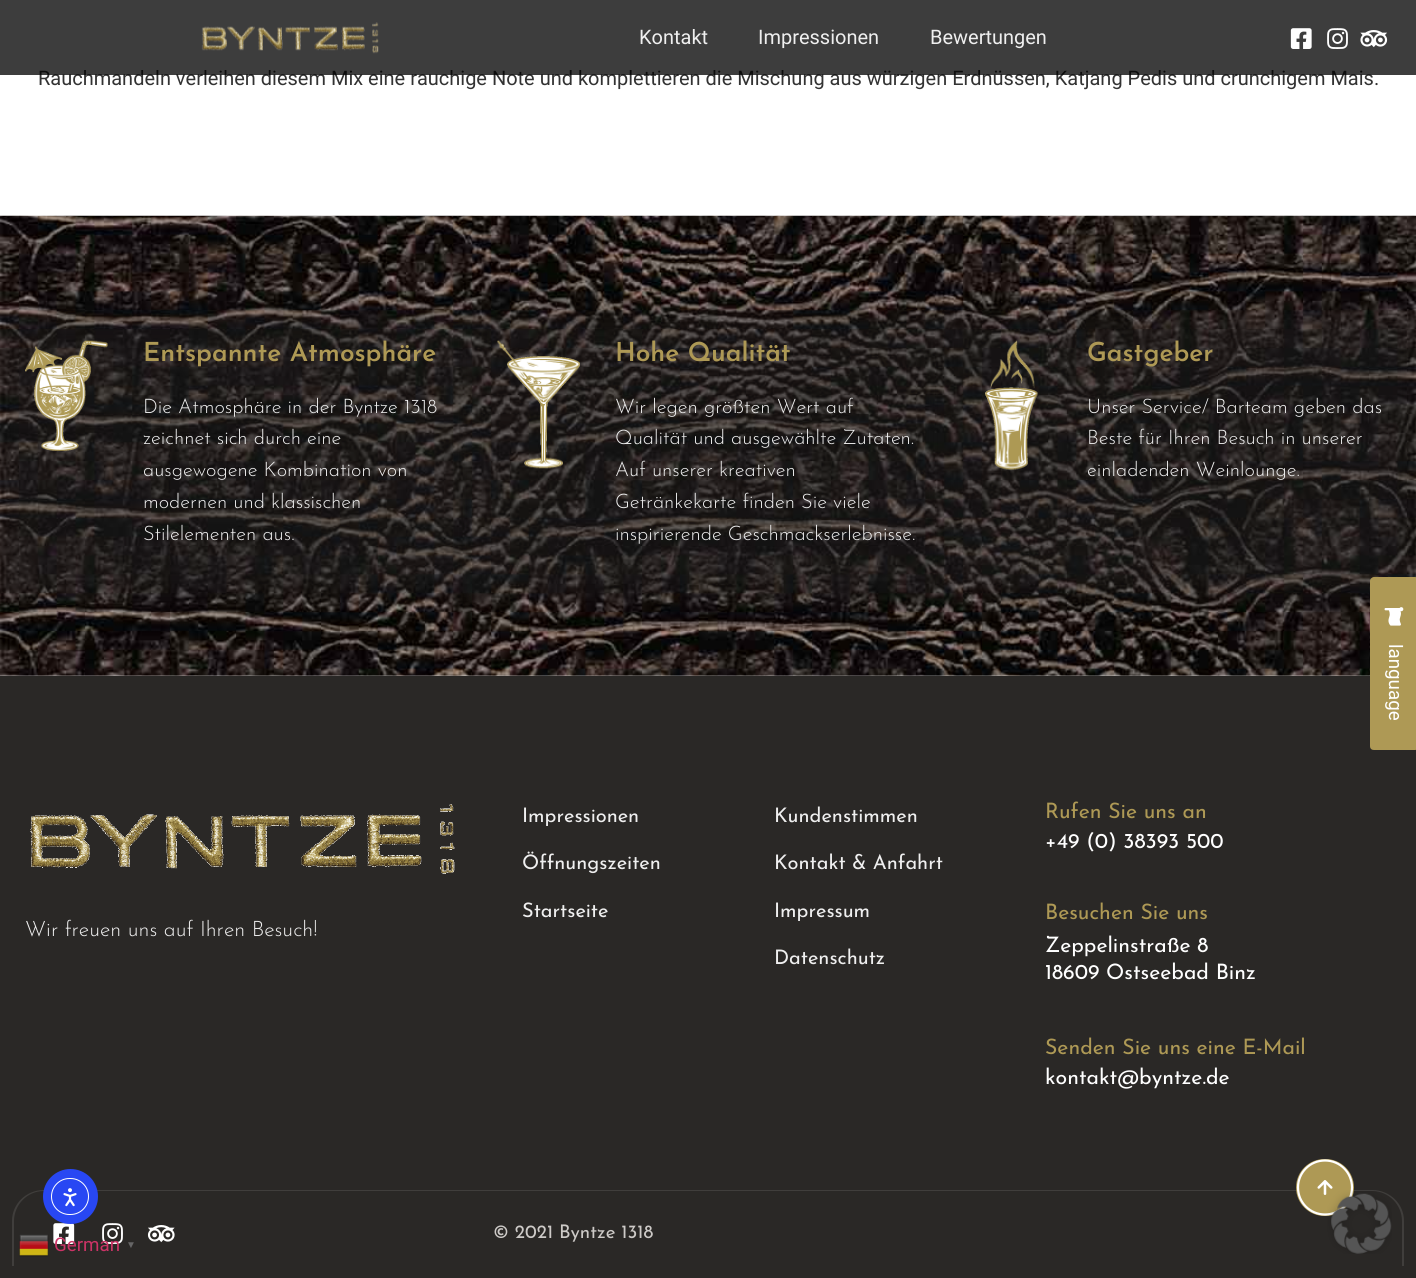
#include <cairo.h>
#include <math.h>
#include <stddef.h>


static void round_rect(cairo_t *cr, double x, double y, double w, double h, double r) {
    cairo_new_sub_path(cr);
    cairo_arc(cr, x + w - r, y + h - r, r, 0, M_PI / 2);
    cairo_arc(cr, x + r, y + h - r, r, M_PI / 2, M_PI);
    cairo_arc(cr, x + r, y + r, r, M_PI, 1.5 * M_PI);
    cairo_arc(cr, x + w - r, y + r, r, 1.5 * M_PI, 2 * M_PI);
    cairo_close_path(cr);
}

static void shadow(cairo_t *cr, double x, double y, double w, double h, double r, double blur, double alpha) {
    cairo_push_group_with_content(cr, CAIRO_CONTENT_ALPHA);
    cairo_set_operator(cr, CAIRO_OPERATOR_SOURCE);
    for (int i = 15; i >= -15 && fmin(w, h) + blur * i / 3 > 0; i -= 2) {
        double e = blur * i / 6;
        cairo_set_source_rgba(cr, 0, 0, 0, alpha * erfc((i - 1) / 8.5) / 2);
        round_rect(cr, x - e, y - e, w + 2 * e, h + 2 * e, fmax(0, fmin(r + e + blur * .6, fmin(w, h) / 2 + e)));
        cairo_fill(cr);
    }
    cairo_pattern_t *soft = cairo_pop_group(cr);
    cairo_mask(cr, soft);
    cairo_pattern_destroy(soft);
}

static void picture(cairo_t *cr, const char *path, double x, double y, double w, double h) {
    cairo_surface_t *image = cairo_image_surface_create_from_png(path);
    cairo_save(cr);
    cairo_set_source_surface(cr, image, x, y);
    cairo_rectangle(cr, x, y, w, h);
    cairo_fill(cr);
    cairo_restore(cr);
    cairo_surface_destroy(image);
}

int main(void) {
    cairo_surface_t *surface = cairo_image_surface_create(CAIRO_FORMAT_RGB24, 1416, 1278);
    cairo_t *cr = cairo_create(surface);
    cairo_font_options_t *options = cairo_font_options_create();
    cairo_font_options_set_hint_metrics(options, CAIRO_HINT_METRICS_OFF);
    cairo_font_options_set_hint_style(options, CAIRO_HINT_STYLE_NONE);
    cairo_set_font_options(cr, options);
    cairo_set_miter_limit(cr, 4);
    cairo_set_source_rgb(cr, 1, 1, 1);
    cairo_paint(cr);
    cairo_select_font_face(cr, "Roboto", CAIRO_FONT_SLANT_NORMAL, CAIRO_FONT_WEIGHT_NORMAL);
    cairo_set_font_size(cr, 20);
    cairo_set_source_rgb(cr, 0.2, 0.2, 0.2);
    cairo_move_to(cr, 38, 85);
    cairo_show_text(cr, "Rauchmandeln verleihen diesem Mix eine rauchige Note und komplettieren die Mischung aus würzigen Erdnüssen, Katjang Pedis und crunchigem Mais.");
    cairo_set_source_rgba(cr, 0, 0, 0, 0.4);
    cairo_rectangle(cr, 0, 0, 1416, 75);
    cairo_fill(cr);
    cairo_set_source_rgba(cr, 0, 0, 0, 0.6);
    cairo_rectangle(cr, 0, 0, 1416, 75);
    cairo_fill(cr);
    picture(cr, "img1.png", 201, 22, 178, 32);
    cairo_set_source_rgb(cr, 0.937, 0.937, 0.937);
    cairo_move_to(cr, 639, 44);
    cairo_show_text(cr, "Kontakt");
    cairo_move_to(cr, 758, 44);
    cairo_show_text(cr, "Impressionen");
    cairo_move_to(cr, 930, 44);
    cairo_show_text(cr, "Bewertungen");
    picture(cr, "img2.png", 1290, 28, 22, 21);
    picture(cr, "img3.png", 1327, 28, 21, 21);
    picture(cr, "img4.png", 1360, 30, 28, 18);
    picture(cr, "img5.png", 0, 215, 1416, 461);
    cairo_set_source_rgb(cr, 0.129, 0.129, 0.129);
    shadow(cr, 0, 316, 473, 279, 0, 12.5, 0.47);
    picture(cr, "img6.png", 25, 340, 83, 111);
    cairo_select_font_face(cr, "Josefin Sans SemiBold", CAIRO_FONT_SLANT_NORMAL, CAIRO_FONT_WEIGHT_NORMAL);
    cairo_set_font_size(cr, 26.25);
    cairo_set_source_rgb(cr, 0.682, 0.6, 0.333);
    cairo_move_to(cr, 143, 361);
    cairo_show_text(cr, "Entspannte Atmosphäre");
    cairo_select_font_face(cr, "Josefin Sans Light", CAIRO_FONT_SLANT_NORMAL, CAIRO_FONT_WEIGHT_NORMAL);
    cairo_set_font_size(cr, 20);
    cairo_set_source_rgb(cr, 0.937, 0.937, 0.937);
    cairo_move_to(cr, 143, 413);
    cairo_show_text(cr, "Die Atmosphäre in der Byntze 1318");
    cairo_move_to(cr, 143, 444);
    cairo_show_text(cr, "zeichnet sich durch eine");
    cairo_move_to(cr, 143, 476);
    cairo_show_text(cr, "ausgewogene Kombination von");
    cairo_move_to(cr, 143, 508);
    cairo_show_text(cr, "modernen und klassischen");
    cairo_move_to(cr, 143, 540);
    cairo_show_text(cr, "Stilelementen aus.");
    cairo_set_source_rgb(cr, 0.129, 0.129, 0.129);
    shadow(cr, 473, 316, 471, 279, 0, 12.5, 0.47);
    picture(cr, "img7.png", 497, 340, 83, 129);
    cairo_select_font_face(cr, "Josefin Sans SemiBold", CAIRO_FONT_SLANT_NORMAL, CAIRO_FONT_WEIGHT_NORMAL);
    cairo_set_font_size(cr, 26.25);
    cairo_set_source_rgb(cr, 0.682, 0.6, 0.333);
    cairo_move_to(cr, 615, 361);
    cairo_show_text(cr, "Hohe Qualität");
    cairo_select_font_face(cr, "Josefin Sans Light", CAIRO_FONT_SLANT_NORMAL, CAIRO_FONT_WEIGHT_NORMAL);
    cairo_set_font_size(cr, 20);
    cairo_set_source_rgb(cr, 0.937, 0.937, 0.937);
    cairo_move_to(cr, 615, 413);
    cairo_show_text(cr, "Wir legen größten Wert auf");
    cairo_move_to(cr, 615, 444);
    cairo_show_text(cr, "Qualität und ausgewählte Zutaten.");
    cairo_move_to(cr, 615, 476);
    cairo_show_text(cr, "Auf unserer kreativen");
    cairo_move_to(cr, 615, 508);
    cairo_show_text(cr, "Getränkekarte finden Sie viele");
    cairo_move_to(cr, 615, 540);
    cairo_show_text(cr, "inspirierende Geschmackserlebnisse.");
    cairo_set_source_rgb(cr, 0.129, 0.129, 0.129);
    shadow(cr, 944, 316, 472, 279, 0, 12.5, 0.47);
    picture(cr, "img8.png", 985, 340, 53, 130);
    cairo_select_font_face(cr, "Josefin Sans SemiBold", CAIRO_FONT_SLANT_NORMAL, CAIRO_FONT_WEIGHT_NORMAL);
    cairo_set_font_size(cr, 26.25);
    cairo_set_source_rgb(cr, 0.682, 0.6, 0.333);
    cairo_move_to(cr, 1087, 361);
    cairo_show_text(cr, "Gastgeber");
    cairo_select_font_face(cr, "Josefin Sans Light", CAIRO_FONT_SLANT_NORMAL, CAIRO_FONT_WEIGHT_NORMAL);
    cairo_set_font_size(cr, 20);
    cairo_set_source_rgb(cr, 0.937, 0.937, 0.937);
    cairo_move_to(cr, 1087, 413);
    cairo_show_text(cr, "Unser Service/ Barteam geben das");
    cairo_move_to(cr, 1087, 444);
    cairo_show_text(cr, "Beste für Ihren Besuch in unserer");
    cairo_move_to(cr, 1087, 476);
    cairo_show_text(cr, "einladenden Weinlounge.");
    cairo_set_source_rgb(cr, 0.165, 0.157, 0.149);
    cairo_rectangle(cr, 0, 676, 1416, 602);
    cairo_fill(cr);
    cairo_set_source_rgb(cr, 0.682, 0.6, 0.333);
    cairo_new_path(cr);
    cairo_move_to(cr, 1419, 581);
    cairo_line_to(cr, 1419, 746);
    cairo_curve_to(cr, 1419, 749, 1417, 750, 1415, 750);
    cairo_line_to(cr, 1374, 750);
    cairo_curve_to(cr, 1372, 750, 1370, 749, 1370, 746);
    cairo_line_to(cr, 1370, 581);
    cairo_curve_to(cr, 1370, 579, 1372, 577, 1374, 577);
    cairo_line_to(cr, 1415, 577);
    cairo_curve_to(cr, 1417, 577, 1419, 579, 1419, 581);
    cairo_close_path(cr);
    cairo_fill(cr);
    picture(cr, "img9.png", 1384, 607, 20, 19);
    cairo_select_font_face(cr, "Roboto", CAIRO_FONT_SLANT_NORMAL, CAIRO_FONT_WEIGHT_NORMAL);
    cairo_set_font_size(cr, 18.75);
    cairo_set_source_rgb(cr, 1, 1, 1);
    cairo_save(cr);
    cairo_translate(cr, 1389, 644);
    cairo_rotate(cr, 90 * M_PI / 180);
    cairo_move_to(cr, 0, 0);
    cairo_show_text(cr, "language");
    cairo_restore(cr);
    picture(cr, "img10.png", 30, 804, 425, 70);
    cairo_select_font_face(cr, "Josefin Sans Light", CAIRO_FONT_SLANT_NORMAL, CAIRO_FONT_WEIGHT_NORMAL);
    cairo_set_font_size(cr, 21.25);
    cairo_set_source_rgb(cr, 0.937, 0.937, 0.937);
    cairo_move_to(cr, 25, 936);
    cairo_show_text(cr, "Wir freuen uns auf Ihren Besuch!");
    cairo_select_font_face(cr, "Josefin Sans", CAIRO_FONT_SLANT_NORMAL, CAIRO_FONT_WEIGHT_NORMAL);
    cairo_set_font_size(cr, 20);
    cairo_move_to(cr, 522, 822);
    cairo_show_text(cr, "Impressionen");
    cairo_move_to(cr, 522, 869);
    cairo_show_text(cr, "Öffnungszeiten");
    cairo_move_to(cr, 522, 917);
    cairo_show_text(cr, "Startseite");
    cairo_move_to(cr, 774, 822);
    cairo_show_text(cr, "Kundenstimmen");
    cairo_move_to(cr, 774, 869);
    cairo_show_text(cr, "Kontakt & Anfahrt");
    cairo_move_to(cr, 774, 917);
    cairo_show_text(cr, "Impressum");
    cairo_move_to(cr, 774, 964);
    cairo_show_text(cr, "Datenschutz");
    cairo_set_font_size(cr, 21.25);
    cairo_set_source_rgb(cr, 0.682, 0.6, 0.333);
    cairo_move_to(cr, 1045, 818);
    cairo_show_text(cr, "Rufen Sie uns an");
    cairo_set_source_rgb(cr, 1, 1, 1);
    cairo_move_to(cr, 1045, 848);
    cairo_show_text(cr, "+49 (0) 38393 500");
    cairo_set_source_rgb(cr, 0.682, 0.6, 0.333);
    cairo_move_to(cr, 1045, 919);
    cairo_show_text(cr, "Besuchen Sie uns");
    cairo_set_source_rgb(cr, 1, 1, 1);
    cairo_move_to(cr, 1045, 952);
    cairo_show_text(cr, "Zeppelinstraße 8");
    cairo_move_to(cr, 1045, 979);
    cairo_show_text(cr, "18609 Ostseebad Binz");
    cairo_set_source_rgb(cr, 0.682, 0.6, 0.333);
    cairo_move_to(cr, 1045, 1054);
    cairo_show_text(cr, "Senden Sie uns eine E-Mail");
    cairo_set_source_rgb(cr, 1, 1, 1);
    cairo_move_to(cr, 1045, 1084);
    cairo_show_text(cr, "kontakt@byntze.de");
    cairo_set_source_rgb(cr, 0.251, 0.243, 0.235);
    cairo_set_fill_rule(cr, CAIRO_FILL_RULE_EVEN_ODD);
    cairo_new_path(cr);
    cairo_move_to(cr, 44, 1190);
    cairo_line_to(cr, 1372, 1190);
    cairo_curve_to(cr, 1390, 1190, 1404, 1204, 1404, 1221);
    cairo_line_to(cr, 1404, 1266);
    cairo_line_to(cr, 12, 1266);
    cairo_line_to(cr, 12, 1221);
    cairo_curve_to(cr, 12, 1204, 26, 1190, 44, 1190);
    cairo_close_path(cr);
    cairo_move_to(cr, 44, 1191);
    cairo_line_to(cr, 1372, 1191);
    cairo_curve_to(cr, 1389, 1191, 1402, 1205, 1402, 1221);
    cairo_line_to(cr, 1402, 1266);
    cairo_line_to(cr, 14, 1266);
    cairo_line_to(cr, 14, 1221);
    cairo_curve_to(cr, 14, 1205, 27, 1191, 44, 1191);
    cairo_close_path(cr);
    cairo_fill(cr);
    picture(cr, "img11.png", 53, 1223, 22, 21);
    picture(cr, "img12.png", 102, 1223, 21, 21);
    picture(cr, "img13.png", 147, 1225, 28, 18);
    cairo_set_font_size(cr, 18.75);
    cairo_set_source_rgb(cr, 0.804, 0.792, 0.78);
    cairo_move_to(cr, 493, 1238);
    cairo_show_text(cr, "© 2021 Byntze 1318");
    cairo_set_source_rgb(cr, 0.157, 0.278, 0.953);
    cairo_new_path(cr);
    cairo_arc(cr, 70.5, 1196.5, 27.5, 0, 2 * M_PI);
    cairo_fill(cr);
    round_rect(cr, 51.5, 1178.5, 37, 36, 18);
    cairo_set_source_rgb(cr, 1, 1, 1);
    cairo_set_line_width(cr, 1);
    cairo_stroke(cr);
    picture(cr, "img14.png", 63, 1188, 14, 19);
    cairo_set_source_rgb(cr, 0.682, 0.6, 0.333);
    round_rect(cr, 1297.5, 1160.5, 55, 54, 27);
    cairo_fill_preserve(cr);
    cairo_set_line_width(cr, 3);
    cairo_stroke(cr);
    cairo_new_path(cr);
    cairo_move_to(cr, 1325, 1160.5);
    cairo_curve_to(cr, 1340, 1160.5, 1352, 1172.5, 1352, 1187.5);
    cairo_curve_to(cr, 1352, 1202.5, 1340, 1214.5, 1325, 1214.5);
    cairo_curve_to(cr, 1310, 1214.5, 1298, 1202.5, 1298, 1187.5);
    cairo_curve_to(cr, 1298, 1172.5, 1310, 1160.5, 1325, 1160.5);
    cairo_set_source_rgb(cr, 1, 1, 1);
    cairo_set_line_width(cr, 2.2);
    cairo_stroke(cr);
    picture(cr, "img15.png", 1317, 1180, 16, 15);
    picture(cr, "img16.png", 1327, 1190, 65, 64);
    picture(cr, "img17.png", 19, 1234, 30, 23);
    cairo_select_font_face(cr, "Roboto", CAIRO_FONT_SLANT_NORMAL, CAIRO_FONT_WEIGHT_NORMAL);
    cairo_set_source_rgb(cr, 0.8, 0.2, 0.4);
    cairo_move_to(cr, 54, 1251);
    cairo_show_text(cr, "German");
    cairo_select_font_face(cr, "Liberation Sans", CAIRO_FONT_SLANT_NORMAL, CAIRO_FONT_WEIGHT_BOLD);
    cairo_set_font_size(cr, 10);
    cairo_set_source_rgb(cr, 0.4, 0.4, 0.4);
    cairo_move_to(cr, 126, 1248);
    cairo_show_text(cr, "▼");
    cairo_surface_write_to_png(surface, "page.png");
    cairo_font_options_destroy(options);
    cairo_destroy(cr);
    cairo_surface_destroy(surface);
    return 0;
}
